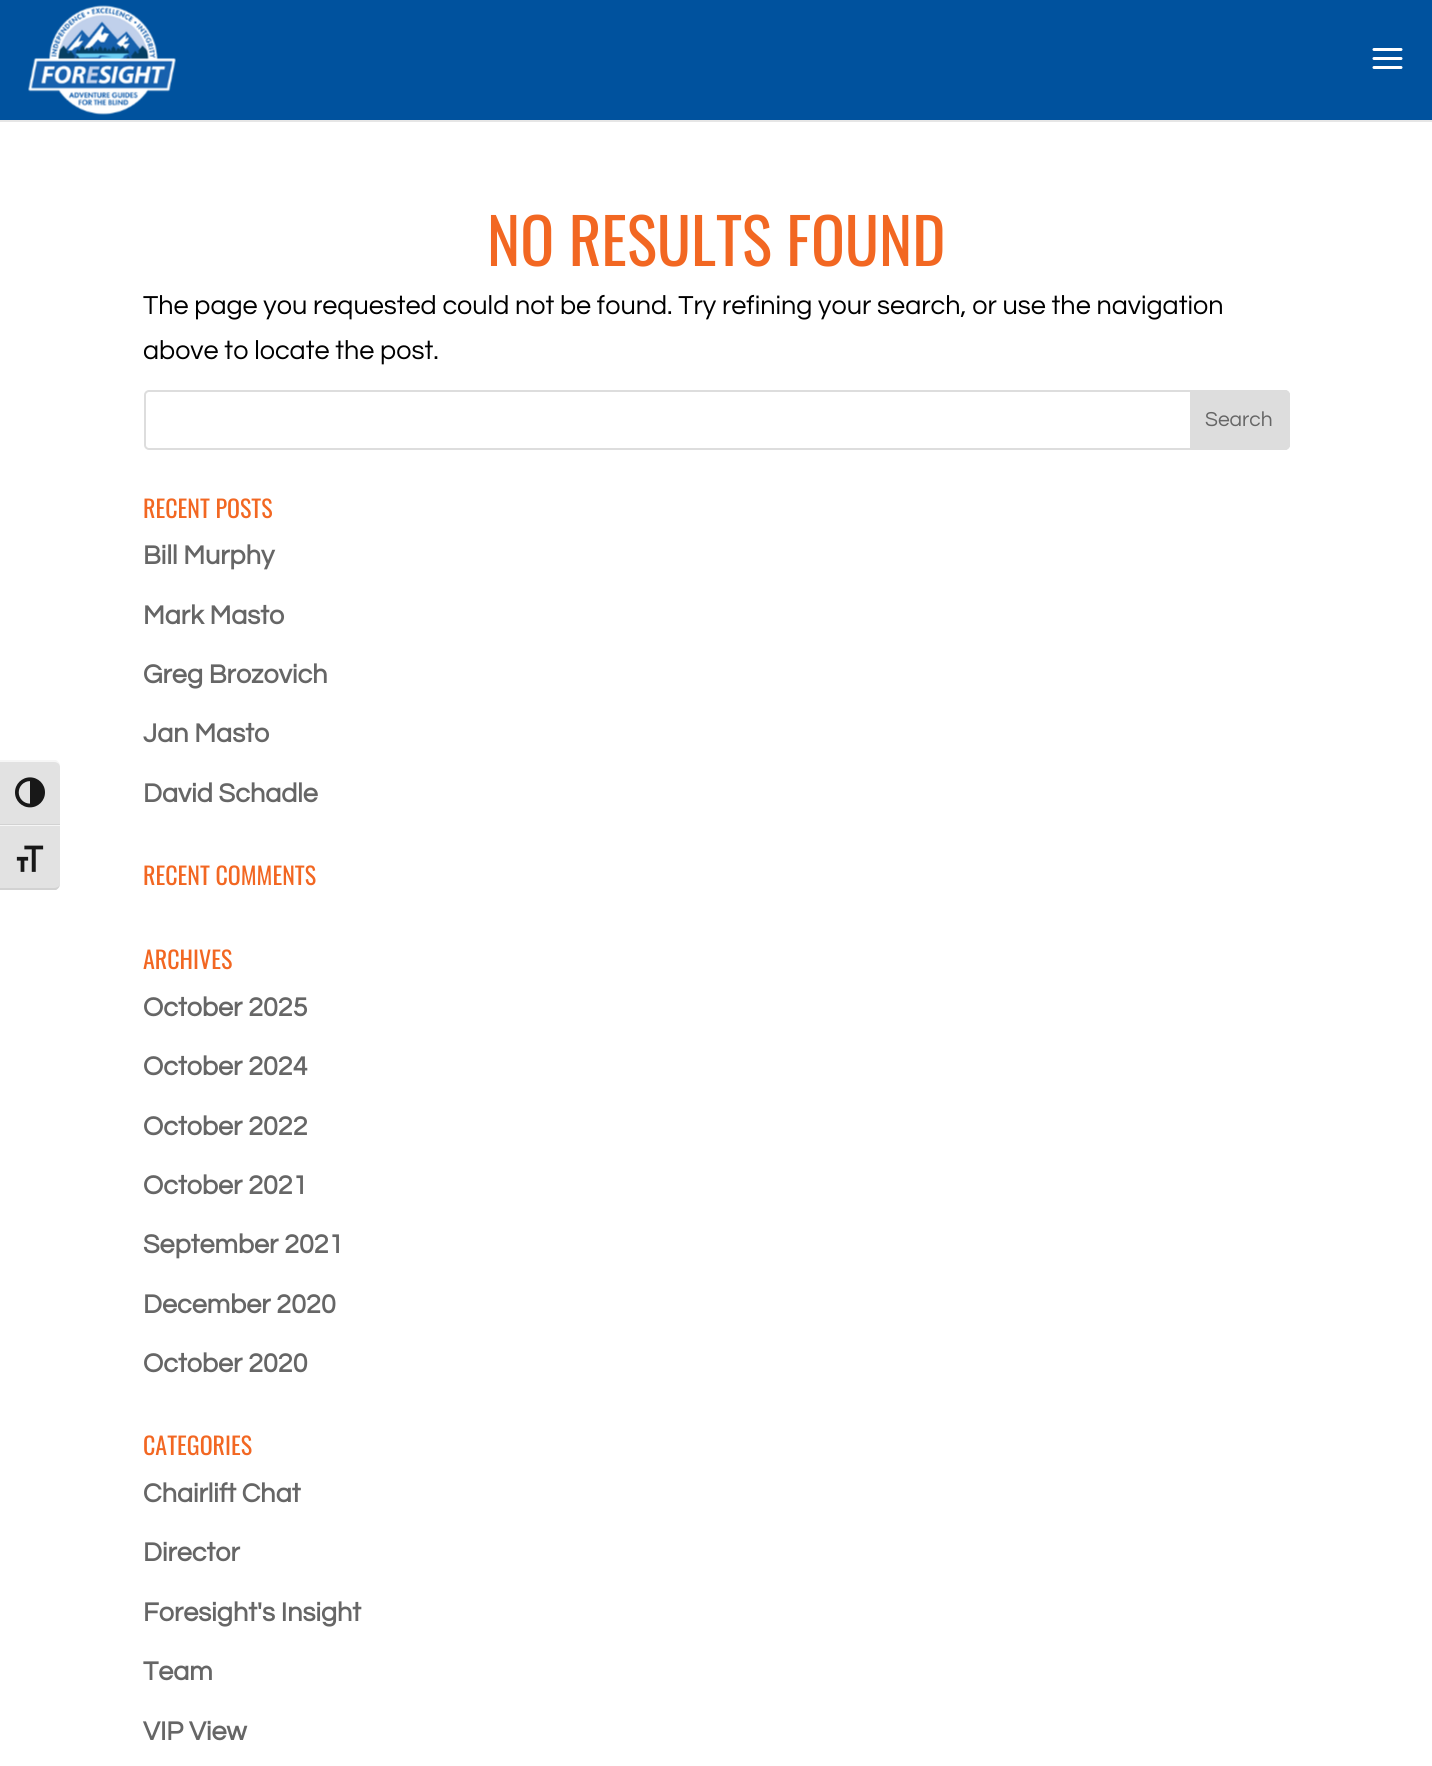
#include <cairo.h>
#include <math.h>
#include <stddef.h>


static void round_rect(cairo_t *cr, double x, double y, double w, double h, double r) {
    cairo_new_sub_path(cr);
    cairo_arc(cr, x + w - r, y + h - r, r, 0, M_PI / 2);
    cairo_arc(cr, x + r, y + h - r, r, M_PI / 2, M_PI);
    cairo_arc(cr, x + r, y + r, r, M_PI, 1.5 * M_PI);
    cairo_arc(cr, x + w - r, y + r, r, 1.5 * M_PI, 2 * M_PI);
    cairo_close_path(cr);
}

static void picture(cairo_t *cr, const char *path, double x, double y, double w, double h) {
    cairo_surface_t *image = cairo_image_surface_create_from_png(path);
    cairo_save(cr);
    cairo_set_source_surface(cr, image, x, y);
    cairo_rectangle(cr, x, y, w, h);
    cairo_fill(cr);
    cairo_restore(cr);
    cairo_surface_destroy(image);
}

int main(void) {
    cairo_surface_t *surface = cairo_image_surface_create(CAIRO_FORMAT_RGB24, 1432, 1766);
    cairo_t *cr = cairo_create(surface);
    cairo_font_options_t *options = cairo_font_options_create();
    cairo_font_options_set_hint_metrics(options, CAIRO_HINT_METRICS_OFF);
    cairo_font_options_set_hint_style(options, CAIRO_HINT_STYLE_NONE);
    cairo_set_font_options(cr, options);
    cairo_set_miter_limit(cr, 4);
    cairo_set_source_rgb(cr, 1, 1, 1);
    cairo_paint(cr);
    cairo_set_source_rgb(cr, 0.886, 0.886, 0.886);
    cairo_new_path(cr);
    cairo_move_to(cr, 0, 761);
    cairo_line_to(cr, 54, 761);
    cairo_curve_to(cr, 57.5, 761, 60, 763.5, 60, 767);
    cairo_line_to(cr, 60, 825);
    cairo_line_to(cr, 0, 825);
    cairo_close_path(cr);
    cairo_fill(cr);
    cairo_set_source_rgb(cr, 0.961, 0.961, 0.961);
    cairo_new_path(cr);
    cairo_move_to(cr, 0, 762);
    cairo_line_to(cr, 54, 762);
    cairo_curve_to(cr, 57, 762, 60, 764, 60, 766);
    cairo_curve_to(cr, 60, 764, 58, 761, 56, 760);
    cairo_line_to(cr, 0, 760);
    cairo_close_path(cr);
    cairo_fill(cr);
    cairo_set_source_rgb(cr, 0.824, 0.824, 0.824);
    cairo_rectangle(cr, 0, 824, 60, 1);
    cairo_fill(cr);
    picture(cr, "img1.png", 15, 777, 30, 31);
    cairo_set_source_rgb(cr, 0.886, 0.886, 0.886);
    cairo_new_path(cr);
    cairo_move_to(cr, 0, 825);
    cairo_line_to(cr, 60, 825);
    cairo_line_to(cr, 60, 884);
    cairo_curve_to(cr, 60, 887.5, 57.5, 890, 54, 890);
    cairo_line_to(cr, 0, 890);
    cairo_close_path(cr);
    cairo_fill(cr);
    cairo_set_source_rgb(cr, 0.961, 0.961, 0.961);
    cairo_rectangle(cr, 0, 825, 60, 1);
    cairo_fill(cr);
    cairo_set_source_rgb(cr, 0.824, 0.824, 0.824);
    cairo_new_path(cr);
    cairo_move_to(cr, 56, 890);
    cairo_curve_to(cr, 58, 889, 60, 886, 60, 884);
    cairo_curve_to(cr, 60, 886, 57, 888, 54, 888);
    cairo_line_to(cr, 0, 888);
    cairo_line_to(cr, 0, 890);
    cairo_close_path(cr);
    cairo_fill(cr);
    picture(cr, "img2.png", 16, 845, 28, 27);
    cairo_set_source_rgb(cr, 0.902, 0.902, 0.902);
    cairo_new_path(cr);
    cairo_move_to(cr, 0, 120);
    cairo_line_to(cr, 0, 122);
    cairo_line_to(cr, 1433, 122);
    cairo_line_to(cr, 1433, 2);
    cairo_line_to(cr, 1432, 2);
    cairo_line_to(cr, 1432, 120);
    cairo_close_path(cr);
    cairo_fill(cr);
    cairo_set_source_rgb(cr, 0, 0.322, 0.62);
    cairo_rectangle(cr, 0, 0, 1432, 120);
    cairo_fill(cr);
    picture(cr, "img3.png", 28, 5, 148, 110);
    picture(cr, "img4.png", 1372, 48, 31, 21);
    cairo_select_font_face(cr, "Oswald", CAIRO_FONT_SLANT_NORMAL, CAIRO_FONT_WEIGHT_NORMAL);
    cairo_set_font_size(cr, 63);
    cairo_set_source_rgb(cr, 0.949, 0.404, 0.133);
    cairo_move_to(cr, 487, 266);
    cairo_show_text(cr, "NO RESULTS FOUND");
    cairo_select_font_face(cr, "Questrial", CAIRO_FONT_SLANT_NORMAL, CAIRO_FONT_WEIGHT_NORMAL);
    cairo_set_font_size(cr, 27);
    cairo_set_source_rgb(cr, 0, 0, 0);
    cairo_move_to(cr, 143, 314);
    cairo_show_text(cr, "The page you requested could not be found. Try refining your search, or use the navigation");
    cairo_move_to(cr, 143, 359);
    cairo_show_text(cr, "above to locate the post.");
    round_rect(cr, 145, 391, 1144, 58, 4);
    cairo_set_source_rgb(cr, 0.867, 0.867, 0.867);
    cairo_stroke(cr);
    cairo_new_path(cr);
    cairo_move_to(cr, 1191, 391);
    cairo_line_to(cr, 1285, 391);
    cairo_curve_to(cr, 1287, 391, 1289, 393, 1289, 395);
    cairo_line_to(cr, 1289, 445);
    cairo_curve_to(cr, 1289, 447, 1287, 449, 1285, 449);
    cairo_line_to(cr, 1191, 449);
    cairo_close_path(cr);
    cairo_fill_preserve(cr);
    cairo_stroke(cr);
    cairo_set_font_size(cr, 21);
    cairo_set_source_rgb(cr, 0.4, 0.4, 0.4);
    cairo_move_to(cr, 1205, 426);
    cairo_show_text(cr, "Search");
    cairo_select_font_face(cr, "Oswald", CAIRO_FONT_SLANT_NORMAL, CAIRO_FONT_WEIGHT_NORMAL);
    cairo_set_font_size(cr, 24);
    cairo_set_source_rgb(cr, 0.949, 0.404, 0.133);
    cairo_move_to(cr, 143, 518);
    cairo_show_text(cr, "RECENT POSTS");
    cairo_select_font_face(cr, "Questrial", CAIRO_FONT_SLANT_NORMAL, CAIRO_FONT_WEIGHT_BOLD);
    cairo_set_font_size(cr, 27);
    cairo_set_source_rgb(cr, 0.4, 0.4, 0.4);
    cairo_move_to(cr, 143, 564);
    cairo_show_text(cr, "Bill Murphy");
    cairo_move_to(cr, 143, 624);
    cairo_show_text(cr, "Mark Masto");
    cairo_move_to(cr, 143, 683);
    cairo_show_text(cr, "Greg Brozovich");
    cairo_move_to(cr, 143, 742);
    cairo_show_text(cr, "Jan Masto");
    cairo_move_to(cr, 143, 802);
    cairo_show_text(cr, "David Schadle");
    cairo_select_font_face(cr, "Oswald", CAIRO_FONT_SLANT_NORMAL, CAIRO_FONT_WEIGHT_NORMAL);
    cairo_set_font_size(cr, 24);
    cairo_set_source_rgb(cr, 0.949, 0.404, 0.133);
    cairo_move_to(cr, 143, 885);
    cairo_show_text(cr, "RECENT COMMENTS");
    cairo_move_to(cr, 143, 969);
    cairo_show_text(cr, "ARCHIVES");
    cairo_select_font_face(cr, "Questrial", CAIRO_FONT_SLANT_NORMAL, CAIRO_FONT_WEIGHT_BOLD);
    cairo_set_font_size(cr, 27);
    cairo_set_source_rgb(cr, 0.4, 0.4, 0.4);
    cairo_move_to(cr, 143, 1016);
    cairo_show_text(cr, "October 2025");
    cairo_move_to(cr, 143, 1075);
    cairo_show_text(cr, "October 2024");
    cairo_move_to(cr, 143, 1135);
    cairo_show_text(cr, "October 2022");
    cairo_move_to(cr, 143, 1194);
    cairo_show_text(cr, "October 2021");
    cairo_move_to(cr, 143, 1253);
    cairo_show_text(cr, "September 2021");
    cairo_move_to(cr, 143, 1313);
    cairo_show_text(cr, "December 2020");
    cairo_move_to(cr, 143, 1372);
    cairo_show_text(cr, "October 2020");
    cairo_select_font_face(cr, "Oswald", CAIRO_FONT_SLANT_NORMAL, CAIRO_FONT_WEIGHT_NORMAL);
    cairo_set_font_size(cr, 24);
    cairo_set_source_rgb(cr, 0.949, 0.404, 0.133);
    cairo_move_to(cr, 143, 1455);
    cairo_show_text(cr, "CATEGORIES");
    cairo_select_font_face(cr, "Questrial", CAIRO_FONT_SLANT_NORMAL, CAIRO_FONT_WEIGHT_BOLD);
    cairo_set_font_size(cr, 27);
    cairo_set_source_rgb(cr, 0.4, 0.4, 0.4);
    cairo_move_to(cr, 143, 1502);
    cairo_show_text(cr, "Chairlift Chat");
    cairo_move_to(cr, 143, 1561);
    cairo_show_text(cr, "Director");
    cairo_move_to(cr, 143, 1621);
    cairo_show_text(cr, "Foresight's Insight");
    cairo_move_to(cr, 143, 1680);
    cairo_show_text(cr, "Team");
    cairo_move_to(cr, 143, 1740);
    cairo_show_text(cr, "VIP View");
    cairo_surface_write_to_png(surface, "page.png");
    cairo_font_options_destroy(options);
    cairo_destroy(cr);
    cairo_surface_destroy(surface);
    return 0;
}
